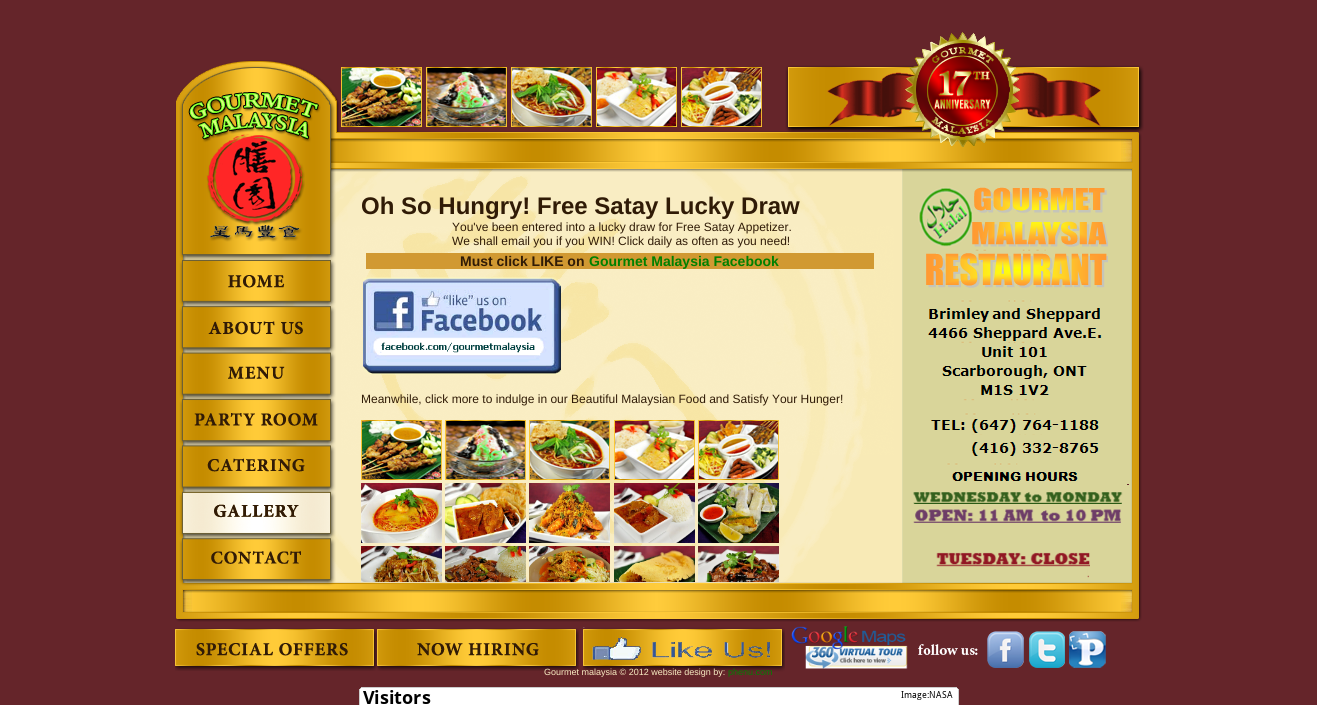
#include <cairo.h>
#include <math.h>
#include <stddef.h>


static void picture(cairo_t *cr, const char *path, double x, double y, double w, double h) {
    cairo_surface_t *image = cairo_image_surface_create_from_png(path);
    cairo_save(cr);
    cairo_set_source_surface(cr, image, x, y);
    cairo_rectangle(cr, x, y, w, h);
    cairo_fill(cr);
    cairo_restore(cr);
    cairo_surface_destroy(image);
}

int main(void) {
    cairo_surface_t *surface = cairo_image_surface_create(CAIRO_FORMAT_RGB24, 1317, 705);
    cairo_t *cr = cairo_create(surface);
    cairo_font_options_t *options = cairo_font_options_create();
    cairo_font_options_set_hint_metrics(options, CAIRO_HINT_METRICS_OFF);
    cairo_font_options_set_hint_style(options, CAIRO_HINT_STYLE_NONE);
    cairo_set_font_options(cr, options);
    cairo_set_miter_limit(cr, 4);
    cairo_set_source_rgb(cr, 0.396, 0.145, 0.165);
    cairo_paint(cr);
    picture(cr, "img1.png", 175, 60, 967, 562);
    picture(cr, "img2.png", 188, 92, 133, 150);
    picture(cr, "img3.png", 341, 67, 81, 60);
    picture(cr, "img4.png", 426, 67, 81, 60);
    picture(cr, "img5.png", 511, 67, 81, 60);
    picture(cr, "img6.png", 596, 67, 81, 60);
    picture(cr, "img7.png", 681, 67, 81, 60);
    picture(cr, "img8.png", 785, 32, 359, 115);
    picture(cr, "img9.png", 228, 275, 57, 13);
    picture(cr, "img10.png", 208, 321, 95, 14);
    picture(cr, "img11.png", 228, 366, 57, 13);
    picture(cr, "img12.png", 194, 413, 124, 13);
    picture(cr, "img13.png", 207, 458, 98, 14);
    picture(cr, "img14.png", 183, 493, 147, 40);
    picture(cr, "img15.png", 211, 551, 90, 13);
    cairo_select_font_face(cr, "Liberation Sans", CAIRO_FONT_SLANT_NORMAL, CAIRO_FONT_WEIGHT_BOLD);
    cairo_set_font_size(cr, 24);
    cairo_set_source_rgb(cr, 0.188, 0.106, 0.024);
    cairo_move_to(cr, 361, 214);
    cairo_show_text(cr, "Oh So Hungry! Free Satay Lucky Draw");
    cairo_select_font_face(cr, "Liberation Sans", CAIRO_FONT_SLANT_NORMAL, CAIRO_FONT_WEIGHT_NORMAL);
    cairo_set_font_size(cr, 12);
    cairo_move_to(cr, 452, 231);
    cairo_show_text(cr, "You've been entered into a lucky draw for Free Satay Appetizer.");
    cairo_move_to(cr, 452, 245);
    cairo_show_text(cr, "We shall email you if you WIN! Click daily as often as you need!");
    cairo_set_source_rgb(cr, 0.82, 0.6, 0.196);
    cairo_rectangle(cr, 366, 253, 508, 16);
    cairo_fill(cr);
    cairo_select_font_face(cr, "Liberation Sans", CAIRO_FONT_SLANT_NORMAL, CAIRO_FONT_WEIGHT_BOLD);
    cairo_set_font_size(cr, 14);
    cairo_set_source_rgb(cr, 0.188, 0.106, 0.024);
    cairo_move_to(cr, 460, 266);
    cairo_show_text(cr, "Must click LIKE on");
    cairo_set_source_rgb(cr, 0, 0.502, 0);
    cairo_move_to(cr, 589, 266);
    cairo_show_text(cr, "Gourmet Malaysia Facebook");
    picture(cr, "img16.png", 363, 277, 198, 98);
    cairo_select_font_face(cr, "Liberation Sans", CAIRO_FONT_SLANT_NORMAL, CAIRO_FONT_WEIGHT_NORMAL);
    cairo_set_font_size(cr, 12);
    cairo_set_source_rgb(cr, 0.188, 0.106, 0.024);
    cairo_move_to(cr, 361, 403);
    cairo_show_text(cr, "Meanwhile, click more to indulge in our Beautiful Malaysian Food and Satisfy Your Hunger!");
    picture(cr, "img3.png", 361, 420, 81, 60);
    picture(cr, "img17.png", 445, 420, 81, 60);
    picture(cr, "img5.png", 529, 420, 81, 60);
    picture(cr, "img6.png", 614, 420, 81, 60);
    picture(cr, "img7.png", 698, 420, 81, 60);
    picture(cr, "img18.png", 361, 483, 81, 60);
    picture(cr, "img19.png", 445, 483, 81, 60);
    picture(cr, "img20.png", 529, 483, 81, 60);
    picture(cr, "img21.png", 614, 483, 81, 60);
    picture(cr, "img22.png", 698, 483, 81, 60);
    picture(cr, "img23.png", 361, 546, 81, 36);
    picture(cr, "img24.png", 445, 546, 81, 36);
    picture(cr, "img25.png", 529, 546, 81, 36);
    picture(cr, "img26.png", 614, 546, 81, 36);
    picture(cr, "img27.png", 698, 546, 81, 36);
    picture(cr, "img28.png", 175, 628, 202, 43);
    picture(cr, "img29.png", 377, 628, 202, 43);
    picture(cr, "img30.png", 583, 627, 202, 45);
    picture(cr, "img31.png", 791, 626, 117, 43);
    picture(cr, "img32.png", 918, 644, 60, 11);
    picture(cr, "img33.png", 987, 631, 37, 37);
    picture(cr, "img34.png", 1029, 631, 36, 37);
    picture(cr, "img35.png", 1069, 631, 37, 37);
    cairo_set_font_size(cr, 9);
    cairo_set_source_rgb(cr, 0.976, 0.929, 0.765);
    cairo_move_to(cr, 544, 675);
    cairo_show_text(cr, "Gourmet malaysia © 2012 website design by:");
    cairo_set_source_rgb(cr, 0, 0.502, 0);
    cairo_move_to(cr, 728, 675);
    cairo_show_text(cr, "phenu.com");
    picture(cr, "img36.png", 359, 687, 600, 18);
    cairo_surface_write_to_png(surface, "page.png");
    cairo_font_options_destroy(options);
    cairo_destroy(cr);
    cairo_surface_destroy(surface);
    return 0;
}
